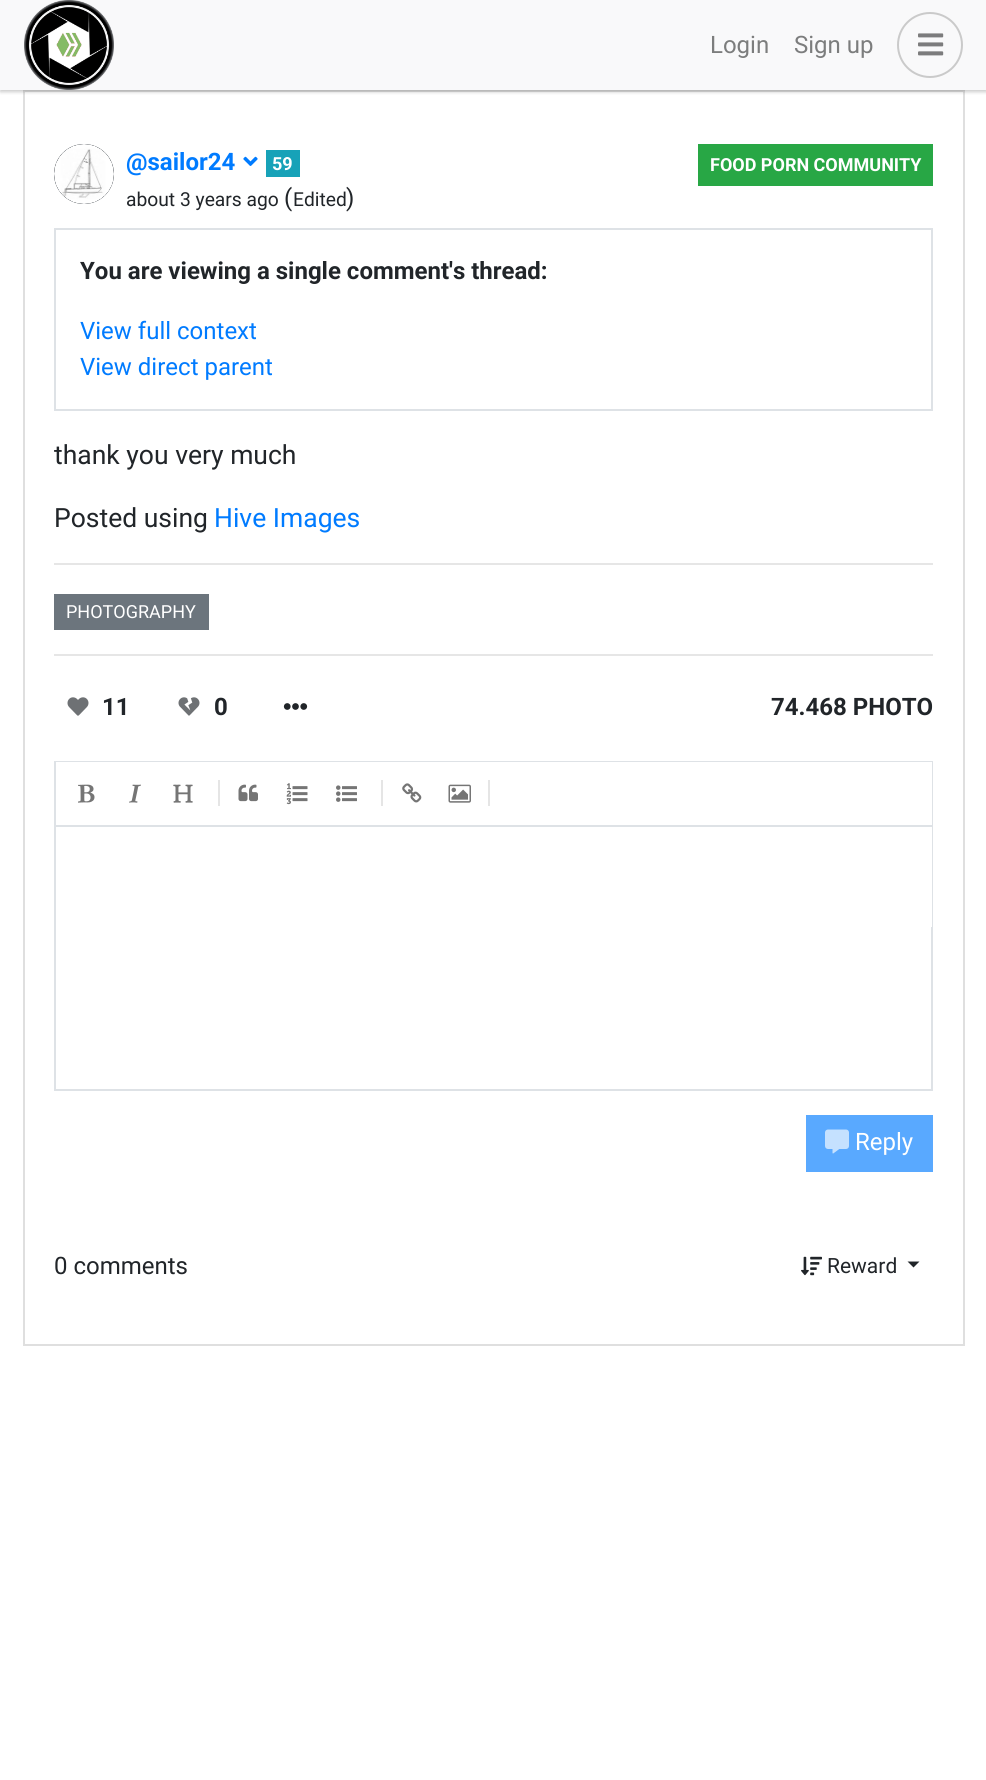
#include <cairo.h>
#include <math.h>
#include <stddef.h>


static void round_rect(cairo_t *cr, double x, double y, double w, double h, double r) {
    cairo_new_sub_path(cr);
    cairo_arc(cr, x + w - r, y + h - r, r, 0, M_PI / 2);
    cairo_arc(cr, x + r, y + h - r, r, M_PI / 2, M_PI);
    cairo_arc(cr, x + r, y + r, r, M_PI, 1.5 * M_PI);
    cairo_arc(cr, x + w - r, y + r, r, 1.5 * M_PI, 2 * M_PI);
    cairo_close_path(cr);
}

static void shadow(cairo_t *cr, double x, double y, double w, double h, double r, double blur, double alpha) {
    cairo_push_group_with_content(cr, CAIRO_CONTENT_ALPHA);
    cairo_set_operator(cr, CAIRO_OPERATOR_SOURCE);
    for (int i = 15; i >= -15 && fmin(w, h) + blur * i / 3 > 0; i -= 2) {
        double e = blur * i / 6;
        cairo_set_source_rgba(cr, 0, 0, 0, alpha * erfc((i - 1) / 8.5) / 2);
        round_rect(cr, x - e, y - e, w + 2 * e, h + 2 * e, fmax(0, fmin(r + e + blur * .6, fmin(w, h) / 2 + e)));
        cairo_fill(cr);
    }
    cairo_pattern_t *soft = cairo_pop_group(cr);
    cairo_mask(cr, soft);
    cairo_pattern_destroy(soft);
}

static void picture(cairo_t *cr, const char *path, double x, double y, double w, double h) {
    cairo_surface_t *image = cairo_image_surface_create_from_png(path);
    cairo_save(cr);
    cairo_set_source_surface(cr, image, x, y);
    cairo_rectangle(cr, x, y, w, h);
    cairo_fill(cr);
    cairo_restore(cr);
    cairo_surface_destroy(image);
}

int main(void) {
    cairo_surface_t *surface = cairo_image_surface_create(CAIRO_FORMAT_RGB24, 986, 1780);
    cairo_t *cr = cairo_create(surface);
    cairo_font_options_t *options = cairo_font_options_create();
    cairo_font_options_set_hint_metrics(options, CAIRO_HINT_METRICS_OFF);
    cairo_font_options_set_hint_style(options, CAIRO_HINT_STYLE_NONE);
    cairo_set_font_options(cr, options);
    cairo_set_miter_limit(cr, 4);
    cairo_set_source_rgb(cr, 1, 1, 1);
    cairo_paint(cr);
    cairo_rectangle(cr, 24, 91, 940, 1254);
    cairo_set_source_rgb(cr, 0.875, 0.875, 0.875);
    cairo_stroke(cr);
    cairo_set_source_rgb(cr, 0, 0, 0);
    shadow(cr, 0, 2, 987, 90, 0, 1.5, 0.14);
    shadow(cr, 0, 2, 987, 90, 0, 2, 0.07);
    cairo_set_source_rgb(cr, 0.973, 0.976, 0.98);
    cairo_rectangle(cr, 0, 0, 986, 90);
    cairo_fill(cr);
    picture(cr, "img1.png", 24, 0, 90, 90);
    cairo_select_font_face(cr, "Roboto", CAIRO_FONT_SLANT_NORMAL, CAIRO_FONT_WEIGHT_NORMAL);
    cairo_set_font_size(cr, 24);
    cairo_set_source_rgb(cr, 0.486, 0.49, 0.49);
    cairo_move_to(cr, 710, 53);
    cairo_show_text(cr, "Login");
    cairo_move_to(cr, 794, 53);
    cairo_show_text(cr, "Sign up");
    cairo_new_path(cr);
    cairo_arc(cr, 930, 45, 32, 0, 2 * M_PI);
    cairo_set_source_rgb(cr, 0.792, 0.792, 0.792);
    cairo_stroke(cr);
    picture(cr, "img2.png", 918, 33, 26, 23);
    cairo_set_source_rgb(cr, 0.204, 0.227, 0.251);
    cairo_arc(cr, 84, 174, 30, 0, 2 * M_PI);
    cairo_fill(cr);
    picture(cr, "img3.png", 54, 144, 60, 60);
    cairo_select_font_face(cr, "Roboto", CAIRO_FONT_SLANT_NORMAL, CAIRO_FONT_WEIGHT_BOLD);
    cairo_set_source_rgb(cr, 0, 0.482, 1);
    cairo_move_to(cr, 126, 170);
    cairo_show_text(cr, "@sailor24");
    picture(cr, "img4.png", 243, 156, 15, 10);
    cairo_set_source_rgb(cr, 0.09, 0.635, 0.722);
    cairo_rectangle(cr, 266, 150, 34, 27);
    cairo_fill(cr);
    cairo_set_font_size(cr, 18);
    cairo_set_source_rgb(cr, 1, 1, 1);
    cairo_move_to(cr, 272, 170);
    cairo_show_text(cr, "59");
    cairo_select_font_face(cr, "Roboto", CAIRO_FONT_SLANT_NORMAL, CAIRO_FONT_WEIGHT_NORMAL);
    cairo_set_font_size(cr, 19.25);
    cairo_set_source_rgb(cr, 0.129, 0.145, 0.161);
    cairo_move_to(cr, 126, 206);
    cairo_show_text(cr, "about 3 years ago");
    cairo_set_font_size(cr, 24);
    cairo_move_to(cr, 284, 206);
    cairo_show_text(cr, "(");
    cairo_set_font_size(cr, 19.25);
    cairo_move_to(cr, 293, 206);
    cairo_show_text(cr, "Edited");
    cairo_set_font_size(cr, 24);
    cairo_move_to(cr, 346, 206);
    cairo_show_text(cr, ")");
    cairo_set_source_rgb(cr, 0.157, 0.655, 0.271);
    cairo_rectangle(cr, 698, 144, 235, 42);
    cairo_fill(cr);
    cairo_select_font_face(cr, "Roboto", CAIRO_FONT_SLANT_NORMAL, CAIRO_FONT_WEIGHT_BOLD);
    cairo_set_font_size(cr, 18);
    cairo_set_source_rgb(cr, 1, 1, 1);
    cairo_move_to(cr, 710, 171);
    cairo_show_text(cr, "FOOD PORN COMMUNITY");
    cairo_rectangle(cr, 55, 229, 877, 181);
    cairo_set_source_rgb(cr, 0.871, 0.886, 0.902);
    cairo_stroke(cr);
    cairo_set_font_size(cr, 24);
    cairo_set_source_rgb(cr, 0.129, 0.145, 0.161);
    cairo_move_to(cr, 80, 279);
    cairo_show_text(cr, "You are viewing a single comment's thread:");
    cairo_select_font_face(cr, "Roboto", CAIRO_FONT_SLANT_NORMAL, CAIRO_FONT_WEIGHT_NORMAL);
    cairo_set_source_rgb(cr, 0, 0.482, 1);
    cairo_move_to(cr, 80, 339);
    cairo_show_text(cr, "View full context");
    cairo_move_to(cr, 80, 375);
    cairo_show_text(cr, "View direct parent");
    cairo_set_font_size(cr, 26.5);
    cairo_set_source_rgb(cr, 0.129, 0.145, 0.161);
    cairo_move_to(cr, 54, 464);
    cairo_show_text(cr, "thank you very much");
    cairo_move_to(cr, 54, 527);
    cairo_show_text(cr, "Posted using");
    cairo_set_source_rgb(cr, 0, 0.482, 1);
    cairo_move_to(cr, 214, 527);
    cairo_show_text(cr, "Hive Images");
    cairo_set_source_rgb(cr, 0.902, 0.902, 0.902);
    cairo_rectangle(cr, 54, 563, 879, 2);
    cairo_fill(cr);
    cairo_set_source_rgb(cr, 0.424, 0.459, 0.49);
    cairo_rectangle(cr, 54, 594, 155, 36);
    cairo_fill(cr);
    cairo_set_font_size(cr, 18);
    cairo_set_source_rgb(cr, 1, 1, 1);
    cairo_move_to(cr, 66, 618);
    cairo_show_text(cr, "PHOTOGRAPHY");
    cairo_set_source_rgb(cr, 0.902, 0.902, 0.902);
    cairo_rectangle(cr, 54, 654, 879, 2);
    cairo_fill(cr);
    picture(cr, "img5.png", 67, 697, 22, 19);
    cairo_select_font_face(cr, "Roboto", CAIRO_FONT_SLANT_NORMAL, CAIRO_FONT_WEIGHT_BOLD);
    cairo_set_font_size(cr, 24);
    cairo_set_source_rgb(cr, 0.129, 0.145, 0.161);
    cairo_move_to(cr, 102, 715);
    cairo_show_text(cr, "11");
    picture(cr, "img6.png", 178, 697, 22, 19);
    cairo_move_to(cr, 214, 715);
    cairo_show_text(cr, "0");
    picture(cr, "img7.png", 283, 703, 25, 7);
    cairo_move_to(cr, 771, 715);
    cairo_show_text(cr, "74.468 PHOTO");
    cairo_rectangle(cr, 55, 762, 877, 328);
    cairo_set_source_rgb(cr, 0.871, 0.886, 0.902);
    cairo_stroke(cr);
    cairo_set_source_rgb(cr, 1, 1, 1);
    cairo_rectangle(cr, 56, 762, 876, 63);
    cairo_fill(cr);
    cairo_set_source_rgb(cr, 0.871, 0.886, 0.902);
    cairo_rectangle(cr, 56, 825, 876, 2);
    cairo_fill(cr);
    picture(cr, "img8.png", 78, 784, 17, 19);
    picture(cr, "img9.png", 129, 784, 12, 19);
    picture(cr, "img10.png", 173, 784, 20, 19);
    cairo_set_source_rgb(cr, 0.898, 0.898, 0.898);
    cairo_rectangle(cr, 218, 780, 2, 26);
    cairo_fill(cr);
    picture(cr, "img11.png", 238, 784, 20, 18);
    picture(cr, "img12.png", 286, 783, 22, 22);
    picture(cr, "img13.png", 336, 785, 21, 17);
    cairo_rectangle(cr, 381, 780, 2, 26);
    cairo_fill(cr);
    picture(cr, "img14.png", 402, 783, 20, 20);
    picture(cr, "img15.png", 448, 784, 23, 19);
    cairo_rectangle(cr, 488, 780, 2, 26);
    cairo_fill(cr);
    cairo_set_source_rgb(cr, 1, 1, 1);
    cairo_rectangle(cr, 931, 827, 1, 100);
    cairo_fill(cr);
    cairo_set_source_rgb(cr, 0.349, 0.663, 1);
    cairo_rectangle(cr, 806, 1115, 127, 57);
    cairo_fill(cr);
    picture(cr, "img16.png", 825, 1129, 24, 25);
    cairo_select_font_face(cr, "Roboto", CAIRO_FONT_SLANT_NORMAL, CAIRO_FONT_WEIGHT_NORMAL);
    cairo_set_source_rgb(cr, 1, 1, 1);
    cairo_move_to(cr, 855, 1150);
    cairo_show_text(cr, "Reply");
    cairo_set_source_rgb(cr, 0.129, 0.145, 0.161);
    cairo_move_to(cr, 54, 1274);
    cairo_show_text(cr, "0 comments");
    picture(cr, "img17.png", 801, 1256, 21, 20);
    cairo_set_font_size(cr, 21);
    cairo_move_to(cr, 827, 1273);
    cairo_show_text(cr, "Reward");
    cairo_new_path(cr);
    cairo_move_to(cr, 907.5, 1261.5);
    cairo_line_to(cr, 919.5, 1261.5);
    cairo_line_to(cr, 913.5, 1267.5);
    cairo_close_path(cr);
    cairo_fill(cr);
    cairo_surface_write_to_png(surface, "page.png");
    cairo_font_options_destroy(options);
    cairo_destroy(cr);
    cairo_surface_destroy(surface);
    return 0;
}
